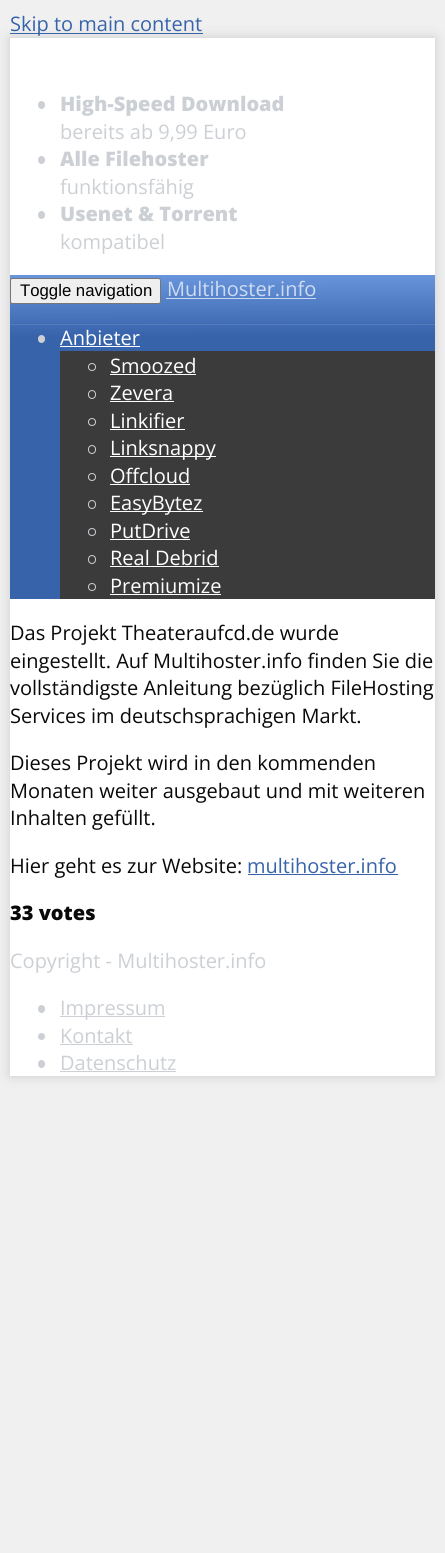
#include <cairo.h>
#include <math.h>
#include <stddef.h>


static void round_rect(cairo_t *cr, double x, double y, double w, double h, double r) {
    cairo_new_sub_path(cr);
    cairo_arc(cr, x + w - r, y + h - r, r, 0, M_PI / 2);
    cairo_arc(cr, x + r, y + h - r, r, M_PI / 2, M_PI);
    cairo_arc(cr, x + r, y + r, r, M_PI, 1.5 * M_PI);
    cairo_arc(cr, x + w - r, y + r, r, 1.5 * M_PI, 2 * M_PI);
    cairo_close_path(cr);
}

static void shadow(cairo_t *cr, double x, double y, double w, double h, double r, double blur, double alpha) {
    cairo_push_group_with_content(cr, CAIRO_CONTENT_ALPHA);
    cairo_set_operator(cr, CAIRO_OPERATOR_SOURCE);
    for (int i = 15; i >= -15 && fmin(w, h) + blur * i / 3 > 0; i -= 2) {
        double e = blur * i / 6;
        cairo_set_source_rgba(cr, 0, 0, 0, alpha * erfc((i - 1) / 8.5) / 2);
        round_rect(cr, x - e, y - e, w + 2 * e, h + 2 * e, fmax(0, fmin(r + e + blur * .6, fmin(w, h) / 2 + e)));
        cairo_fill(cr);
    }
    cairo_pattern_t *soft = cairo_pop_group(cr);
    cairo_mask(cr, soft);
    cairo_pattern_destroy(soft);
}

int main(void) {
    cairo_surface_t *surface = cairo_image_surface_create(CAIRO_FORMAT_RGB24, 445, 1553);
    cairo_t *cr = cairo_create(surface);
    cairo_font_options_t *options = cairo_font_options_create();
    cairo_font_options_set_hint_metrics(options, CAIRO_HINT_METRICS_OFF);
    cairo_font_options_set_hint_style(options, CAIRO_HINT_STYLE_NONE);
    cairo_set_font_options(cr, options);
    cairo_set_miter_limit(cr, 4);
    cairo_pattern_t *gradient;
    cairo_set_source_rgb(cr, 0.941, 0.941, 0.941);
    cairo_paint(cr);
    cairo_set_source_rgb(cr, 0.231, 0.231, 0.231);
    shadow(cr, 10, 38, 425, 1038, 0, 6, 0.2);
    cairo_set_source_rgb(cr, 0.216, 0.388, 0.671);
    cairo_rectangle(cr, 10, 33, 193, 1);
    cairo_fill(cr);
    cairo_select_font_face(cr, "Open Sans", CAIRO_FONT_SLANT_NORMAL, CAIRO_FONT_WEIGHT_NORMAL);
    cairo_set_font_size(cr, 20);
    cairo_move_to(cr, 10, 31);
    cairo_show_text(cr, "Skip to main content");
    cairo_set_source_rgb(cr, 1, 1, 1);
    cairo_rectangle(cr, 10, 38, 425, 1038);
    cairo_fill(cr);
    cairo_set_source_rgb(cr, 0.8, 0.816, 0.831);
    round_rect(cr, 38, 101, 7, 8, 3.5);
    cairo_fill(cr);
    cairo_select_font_face(cr, "Open Sans ExtraBold", CAIRO_FONT_SLANT_NORMAL, CAIRO_FONT_WEIGHT_NORMAL);
    cairo_move_to(cr, 60, 111);
    cairo_show_text(cr, "High-Speed Download");
    cairo_select_font_face(cr, "Open Sans", CAIRO_FONT_SLANT_NORMAL, CAIRO_FONT_WEIGHT_NORMAL);
    cairo_move_to(cr, 60, 139);
    cairo_show_text(cr, "bereits ab 9,99 Euro");
    round_rect(cr, 38, 156, 7, 8, 3.5);
    cairo_fill(cr);
    cairo_select_font_face(cr, "Open Sans ExtraBold", CAIRO_FONT_SLANT_NORMAL, CAIRO_FONT_WEIGHT_NORMAL);
    cairo_move_to(cr, 60, 166);
    cairo_show_text(cr, "Alle Filehoster");
    cairo_select_font_face(cr, "Open Sans", CAIRO_FONT_SLANT_NORMAL, CAIRO_FONT_WEIGHT_NORMAL);
    cairo_move_to(cr, 60, 194);
    cairo_show_text(cr, "funktionsfähig");
    round_rect(cr, 38, 211, 7, 8, 3.5);
    cairo_fill(cr);
    cairo_select_font_face(cr, "Open Sans ExtraBold", CAIRO_FONT_SLANT_NORMAL, CAIRO_FONT_WEIGHT_NORMAL);
    cairo_move_to(cr, 60, 221);
    cairo_show_text(cr, "Usenet & Torrent");
    cairo_select_font_face(cr, "Open Sans", CAIRO_FONT_SLANT_NORMAL, CAIRO_FONT_WEIGHT_NORMAL);
    cairo_move_to(cr, 60, 249);
    cairo_show_text(cr, "kompatibel");
    gradient = cairo_pattern_create_linear(222, 275, 223, 599);
    cairo_pattern_add_color_stop_rgba(gradient, 0, 0.412, 0.584, 0.867, 1);
    cairo_pattern_add_color_stop_rgba(gradient, 0.19, 0.216, 0.388, 0.671, 1);
    cairo_set_source(cr, gradient);
    cairo_pattern_destroy(gradient);
    cairo_rectangle(cr, 10, 275, 425, 324);
    cairo_fill(cr);
    cairo_set_source_rgb(cr, 0.937, 0.937, 0.937);
    round_rect(cr, 10.5, 278.5, 150, 25, 2);
    cairo_fill_preserve(cr);
    cairo_set_source_rgb(cr, 0.463, 0.463, 0.463);
    cairo_set_line_width(cr, 1);
    cairo_stroke(cr);
    cairo_select_font_face(cr, "Liberation Sans", CAIRO_FONT_SLANT_NORMAL, CAIRO_FONT_WEIGHT_NORMAL);
    cairo_set_font_size(cr, 16.75);
    cairo_set_source_rgb(cr, 0, 0, 0);
    cairo_move_to(cr, 20, 296);
    cairo_show_text(cr, "Toggle navigation");
    cairo_select_font_face(cr, "Open Sans", CAIRO_FONT_SLANT_NORMAL, CAIRO_FONT_WEIGHT_NORMAL);
    cairo_set_font_size(cr, 20);
    cairo_set_source_rgb(cr, 0.808, 0.863, 0.945);
    cairo_move_to(cr, 167, 296);
    cairo_show_text(cr, "Multihoster.info");
    cairo_set_source_rgb(cr, 0.8, 0.855, 0.937);
    cairo_rectangle(cr, 166, 298, 150, 1);
    cairo_fill(cr);
    cairo_set_source_rgb(cr, 0.329, 0.482, 0.737);
    cairo_rectangle(cr, 10, 324, 425, 1);
    cairo_fill(cr);
    cairo_set_source_rgb(cr, 0.8, 0.816, 0.831);
    round_rect(cr, 38, 335, 7, 8, 3.5);
    cairo_fill(cr);
    cairo_set_source_rgb(cr, 1, 1, 1);
    cairo_move_to(cr, 60, 345);
    cairo_show_text(cr, "Anbieter");
    cairo_rectangle(cr, 60, 346, 80, 1);
    cairo_fill(cr);
    cairo_set_source_rgb(cr, 0.231, 0.231, 0.231);
    cairo_rectangle(cr, 60, 351, 375, 248);
    cairo_fill(cr);
    cairo_arc(cr, 92, 367, 3.5, 0, 2 * M_PI);
    cairo_set_source_rgb(cr, 0.8, 0.816, 0.831);
    cairo_stroke(cr);
    cairo_set_source_rgb(cr, 1, 1, 1);
    cairo_move_to(cr, 110, 373);
    cairo_show_text(cr, "Smoozed");
    cairo_rectangle(cr, 110, 374, 86, 1);
    cairo_fill(cr);
    round_rect(cr, 88.5, 390.5, 7, 8, 3.5);
    cairo_set_source_rgb(cr, 0.8, 0.816, 0.831);
    cairo_stroke(cr);
    cairo_set_source_rgb(cr, 1, 1, 1);
    cairo_move_to(cr, 110, 400);
    cairo_show_text(cr, "Zevera");
    cairo_rectangle(cr, 110, 401, 64, 1);
    cairo_fill(cr);
    cairo_arc(cr, 92, 422, 3.5, 0, 2 * M_PI);
    cairo_set_source_rgb(cr, 0.8, 0.816, 0.831);
    cairo_stroke(cr);
    cairo_set_source_rgb(cr, 1, 1, 1);
    cairo_move_to(cr, 110, 428);
    cairo_show_text(cr, "Linkifier");
    cairo_rectangle(cr, 110, 429, 75, 1);
    cairo_fill(cr);
    round_rect(cr, 88.5, 445.5, 7, 8, 3.5);
    cairo_set_source_rgb(cr, 0.8, 0.816, 0.831);
    cairo_stroke(cr);
    cairo_set_source_rgb(cr, 1, 1, 1);
    cairo_rectangle(cr, 110, 456, 106, 1);
    cairo_fill(cr);
    cairo_move_to(cr, 110, 455);
    cairo_show_text(cr, "Linksnappy");
    cairo_new_path(cr);
    cairo_arc(cr, 92, 477, 3.5, 0, 2 * M_PI);
    cairo_set_source_rgb(cr, 0.8, 0.816, 0.831);
    cairo_stroke(cr);
    cairo_set_source_rgb(cr, 1, 1, 1);
    cairo_move_to(cr, 110, 483);
    cairo_show_text(cr, "Offcloud");
    cairo_rectangle(cr, 110, 484, 80, 1);
    cairo_fill(cr);
    round_rect(cr, 88.5, 500.5, 7, 8, 3.5);
    cairo_set_source_rgb(cr, 0.8, 0.816, 0.831);
    cairo_stroke(cr);
    cairo_set_source_rgb(cr, 1, 1, 1);
    cairo_rectangle(cr, 110, 511, 93, 1);
    cairo_fill(cr);
    cairo_move_to(cr, 110, 510);
    cairo_show_text(cr, "EasyBytez");
    cairo_new_path(cr);
    cairo_arc(cr, 92, 532, 3.5, 0, 2 * M_PI);
    cairo_set_source_rgb(cr, 0.8, 0.816, 0.831);
    cairo_stroke(cr);
    cairo_set_source_rgb(cr, 1, 1, 1);
    cairo_move_to(cr, 110, 538);
    cairo_show_text(cr, "PutDrive");
    cairo_rectangle(cr, 110, 539, 80, 1);
    cairo_fill(cr);
    round_rect(cr, 88.5, 555.5, 7, 8, 3.5);
    cairo_set_source_rgb(cr, 0.8, 0.816, 0.831);
    cairo_stroke(cr);
    cairo_set_source_rgb(cr, 1, 1, 1);
    cairo_move_to(cr, 110, 565);
    cairo_show_text(cr, "Real Debrid");
    cairo_rectangle(cr, 110, 566, 109, 1);
    cairo_fill(cr);
    cairo_arc(cr, 92, 587, 3.5, 0, 2 * M_PI);
    cairo_set_source_rgb(cr, 0.8, 0.816, 0.831);
    cairo_stroke(cr);
    cairo_set_source_rgb(cr, 1, 1, 1);
    cairo_move_to(cr, 110, 593);
    cairo_show_text(cr, "Premiumize");
    cairo_rectangle(cr, 110, 594, 111, 1);
    cairo_fill(cr);
    cairo_set_source_rgb(cr, 0.039, 0.039, 0.039);
    cairo_move_to(cr, 10, 640);
    cairo_show_text(cr, "Das Projekt Theateraufcd.de wurde");
    cairo_move_to(cr, 10, 668);
    cairo_show_text(cr, "eingestellt. Auf Multihoster.info finden Sie die");
    cairo_move_to(cr, 10, 695);
    cairo_show_text(cr, "vollständigste Anleitung bezüglich FileHosting");
    cairo_move_to(cr, 10, 723);
    cairo_show_text(cr, "Services im deutschsprachigen Markt.");
    cairo_move_to(cr, 10, 770);
    cairo_show_text(cr, "Dieses Projekt wird in den kommenden");
    cairo_move_to(cr, 10, 798);
    cairo_show_text(cr, "Monaten weiter ausgebaut und mit weiteren");
    cairo_move_to(cr, 10, 825);
    cairo_show_text(cr, "Inhalten gefüllt.");
    cairo_move_to(cr, 10, 873);
    cairo_show_text(cr, "Hier geht es zur Website:");
    cairo_set_source_rgb(cr, 0.216, 0.388, 0.671);
    cairo_move_to(cr, 247, 873);
    cairo_show_text(cr, "multihoster.info");
    cairo_rectangle(cr, 248, 874, 150, 1);
    cairo_fill(cr);
    cairo_select_font_face(cr, "Open Sans ExtraBold", CAIRO_FONT_SLANT_NORMAL, CAIRO_FONT_WEIGHT_NORMAL);
    cairo_set_source_rgb(cr, 0.039, 0.039, 0.039);
    cairo_move_to(cr, 10, 920);
    cairo_show_text(cr, "33 votes");
    cairo_select_font_face(cr, "Open Sans", CAIRO_FONT_SLANT_NORMAL, CAIRO_FONT_WEIGHT_NORMAL);
    cairo_set_source_rgb(cr, 0.8, 0.816, 0.831);
    cairo_move_to(cr, 10, 968);
    cairo_show_text(cr, "Copyright - Multihoster.info");
    round_rect(cr, 38, 1005, 7, 8, 3.5);
    cairo_fill(cr);
    cairo_rectangle(cr, 60, 1016, 105, 1);
    cairo_fill(cr);
    cairo_move_to(cr, 60, 1015);
    cairo_show_text(cr, "Impressum");
    cairo_new_path(cr);
    cairo_arc(cr, 41.5, 1036.5, 3.5, 0, 2 * M_PI);
    cairo_fill(cr);
    cairo_move_to(cr, 60, 1043);
    cairo_show_text(cr, "Kontakt");
    cairo_rectangle(cr, 60, 1044, 73, 1);
    cairo_fill(cr);
    round_rect(cr, 38, 1060, 7, 8, 3.5);
    cairo_fill(cr);
    cairo_move_to(cr, 60, 1070);
    cairo_show_text(cr, "Datenschutz");
    cairo_rectangle(cr, 60, 1071, 116, 1);
    cairo_fill(cr);
    cairo_surface_write_to_png(surface, "page.png");
    cairo_font_options_destroy(options);
    cairo_destroy(cr);
    cairo_surface_destroy(surface);
    return 0;
}
